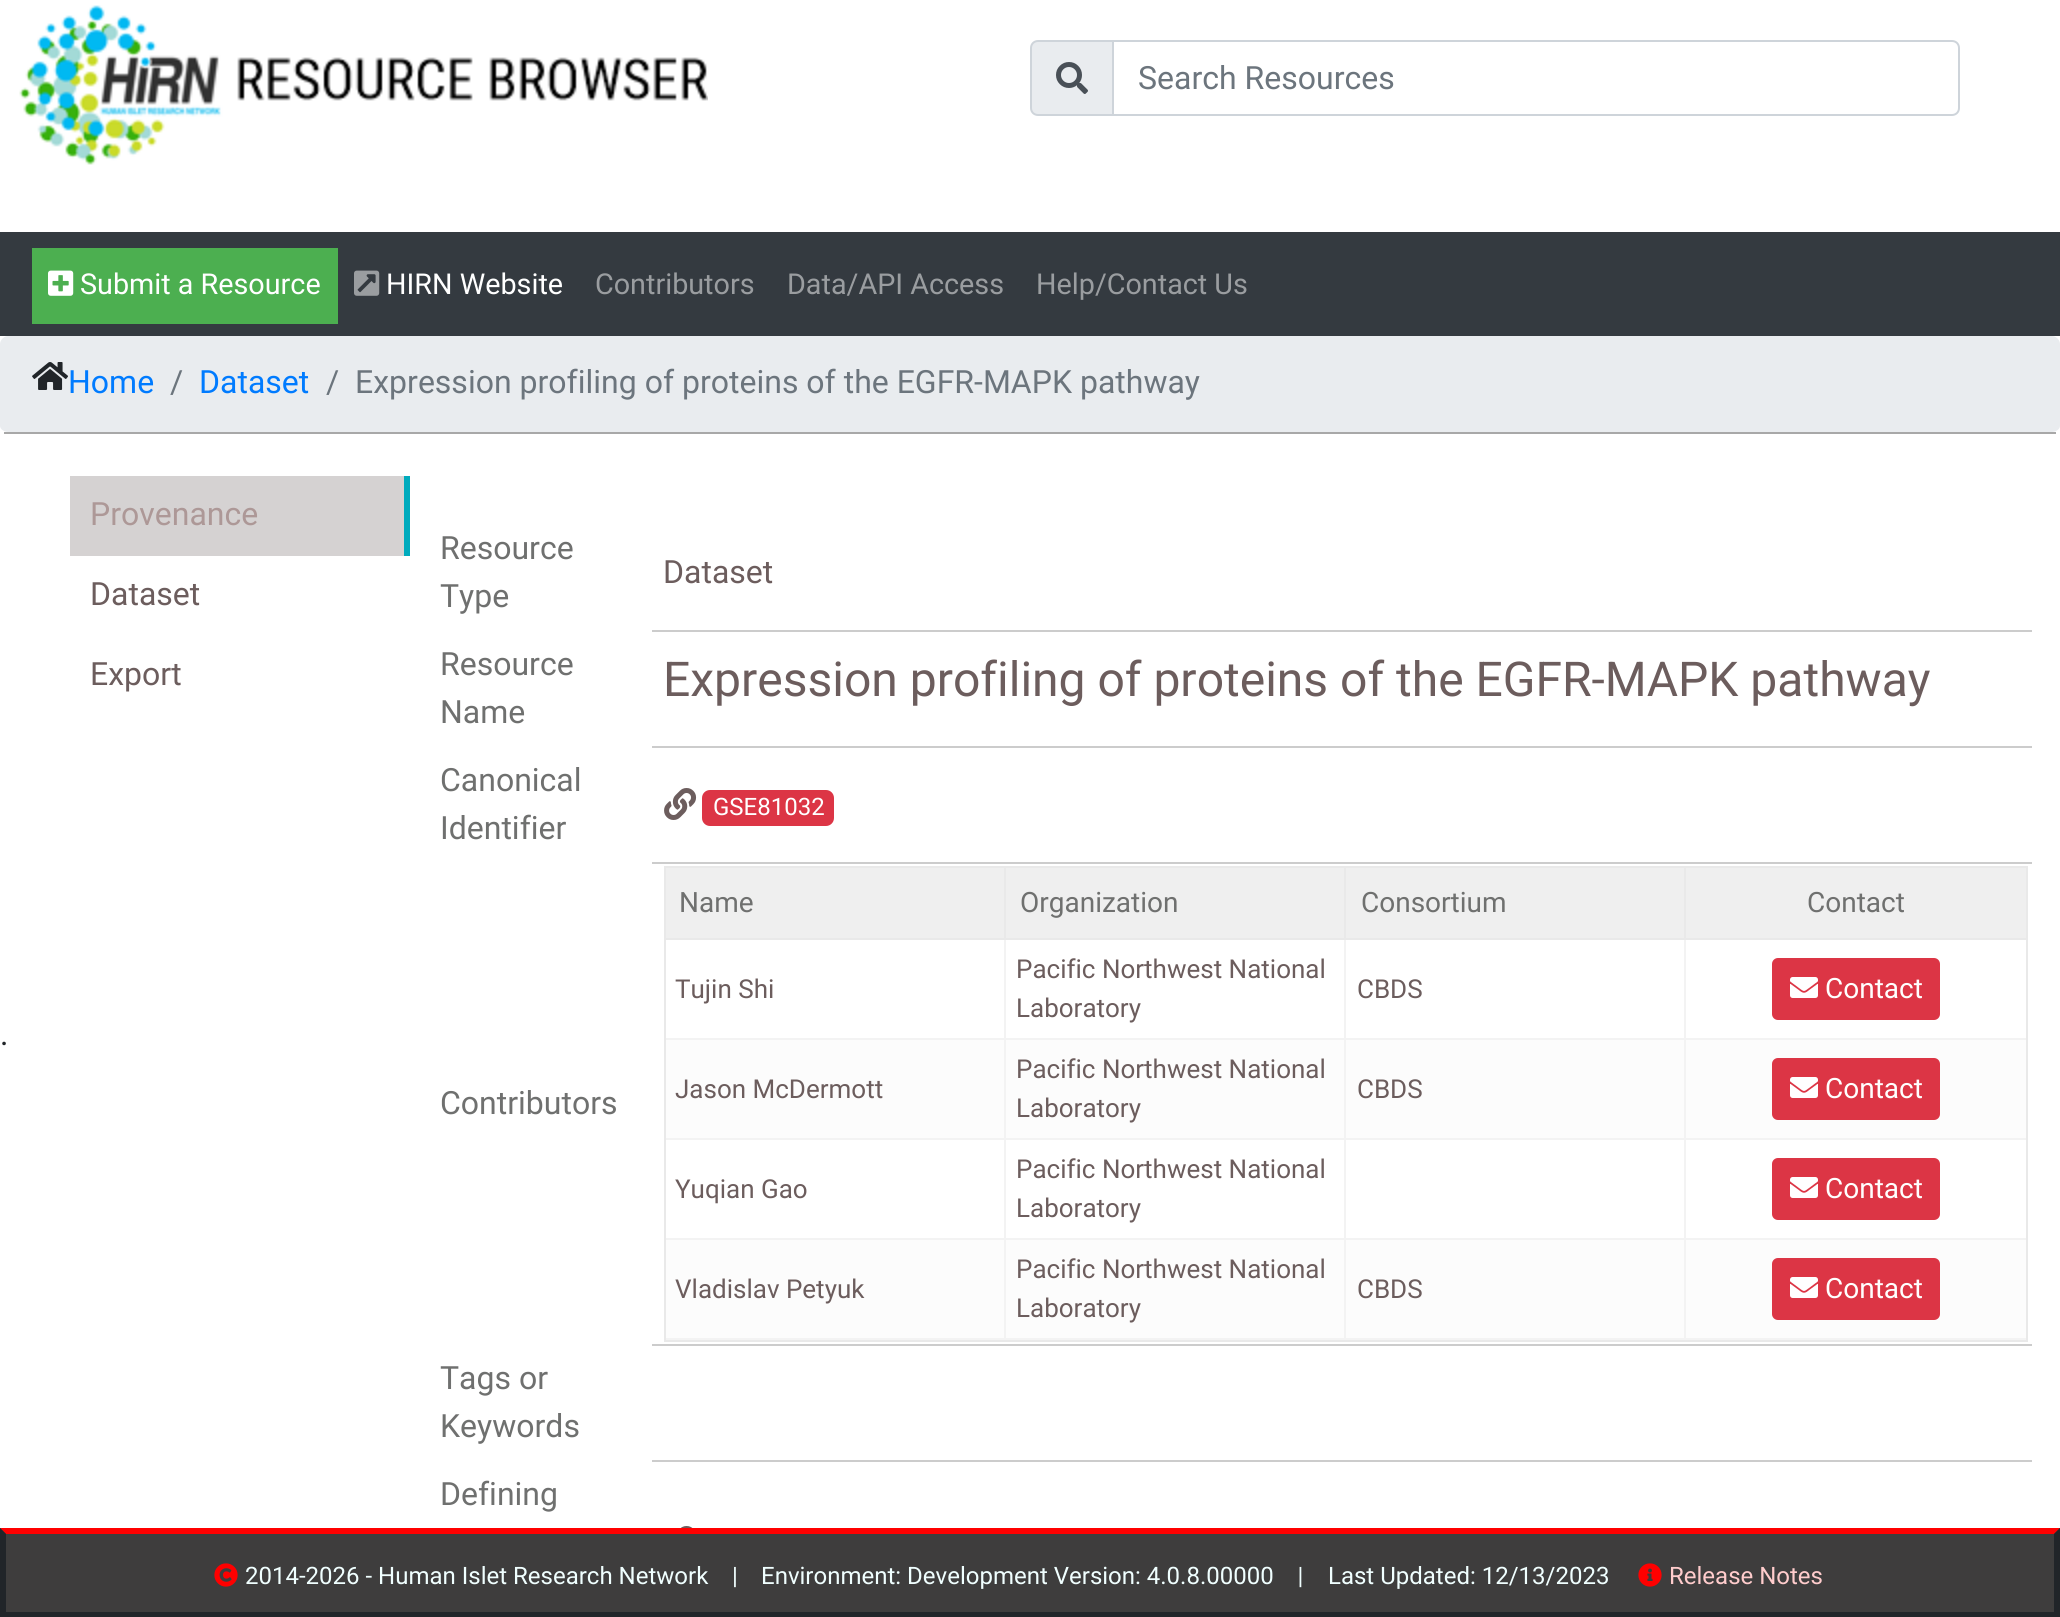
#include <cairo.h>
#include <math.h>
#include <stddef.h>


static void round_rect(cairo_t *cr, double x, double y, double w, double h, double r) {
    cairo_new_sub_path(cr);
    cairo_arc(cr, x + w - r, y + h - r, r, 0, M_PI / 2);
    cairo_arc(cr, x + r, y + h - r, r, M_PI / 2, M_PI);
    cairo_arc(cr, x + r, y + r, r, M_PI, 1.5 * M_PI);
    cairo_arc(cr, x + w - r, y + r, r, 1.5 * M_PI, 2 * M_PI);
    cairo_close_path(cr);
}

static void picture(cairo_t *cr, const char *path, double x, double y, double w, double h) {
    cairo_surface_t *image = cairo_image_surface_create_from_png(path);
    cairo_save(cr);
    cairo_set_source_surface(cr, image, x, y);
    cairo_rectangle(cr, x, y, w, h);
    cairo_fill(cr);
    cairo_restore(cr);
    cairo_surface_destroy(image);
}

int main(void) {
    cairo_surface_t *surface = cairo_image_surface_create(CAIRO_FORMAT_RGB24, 2060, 1617);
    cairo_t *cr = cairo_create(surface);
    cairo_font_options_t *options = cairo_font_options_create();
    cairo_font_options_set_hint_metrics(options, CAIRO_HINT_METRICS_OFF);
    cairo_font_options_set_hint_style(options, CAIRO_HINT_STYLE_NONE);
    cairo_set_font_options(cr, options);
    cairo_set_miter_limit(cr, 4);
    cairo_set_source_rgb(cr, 1, 1, 1);
    cairo_paint(cr);
    picture(cr, "img1.png", 19, 5, 689, 160);
    cairo_set_source_rgb(cr, 0.914, 0.925, 0.937);
    cairo_new_path(cr);
    cairo_move_to(cr, 1038, 41);
    cairo_line_to(cr, 1113, 41);
    cairo_line_to(cr, 1113, 115);
    cairo_line_to(cr, 1038, 115);
    cairo_curve_to(cr, 1034, 115, 1031, 112, 1031, 108);
    cairo_line_to(cr, 1031, 48);
    cairo_curve_to(cr, 1031, 44, 1034, 41, 1038, 41);
    cairo_close_path(cr);
    cairo_fill_preserve(cr);
    cairo_set_source_rgb(cr, 0.808, 0.831, 0.855);
    cairo_stroke(cr);
    picture(cr, "img2.png", 1056, 62, 32, 32);
    cairo_new_path(cr);
    cairo_move_to(cr, 1113, 41);
    cairo_line_to(cr, 1952, 41);
    cairo_curve_to(cr, 1956, 41, 1959, 44, 1959, 48);
    cairo_line_to(cr, 1959, 108);
    cairo_curve_to(cr, 1959, 112, 1956, 115, 1952, 115);
    cairo_line_to(cr, 1113, 115);
    cairo_close_path(cr);
    cairo_stroke(cr);
    cairo_select_font_face(cr, "Roboto", CAIRO_FONT_SLANT_NORMAL, CAIRO_FONT_WEIGHT_NORMAL);
    cairo_set_font_size(cr, 32);
    cairo_set_source_rgb(cr, 0.424, 0.459, 0.49);
    cairo_move_to(cr, 1138, 89);
    cairo_show_text(cr, "Search Resources");
    cairo_set_source_rgb(cr, 0.204, 0.227, 0.251);
    cairo_rectangle(cr, 0, 232, 2060, 104);
    cairo_fill(cr);
    cairo_set_source_rgb(cr, 0.298, 0.686, 0.314);
    cairo_rectangle(cr, 32, 248, 306, 76);
    cairo_fill(cr);
    picture(cr, "img3.png", 48, 270, 26, 26);
    cairo_set_font_size(cr, 28.75);
    cairo_set_source_rgb(cr, 1, 1, 1);
    cairo_move_to(cr, 80, 294);
    cairo_show_text(cr, "Submit a Resource");
    picture(cr, "img4.png", 354, 270, 26, 26);
    cairo_move_to(cr, 386, 294);
    cairo_show_text(cr, "HIRN Website");
    cairo_set_source_rgb(cr, 0.604, 0.616, 0.627);
    cairo_move_to(cr, 595, 294);
    cairo_show_text(cr, "Contributors");
    cairo_move_to(cr, 787, 294);
    cairo_show_text(cr, "Data/API Access");
    cairo_move_to(cr, 1036, 294);
    cairo_show_text(cr, "Help/Contact Us");
    cairo_set_source_rgb(cr, 0.914, 0.925, 0.937);
    cairo_new_path(cr);
    cairo_move_to(cr, 8, 336);
    cairo_line_to(cr, 2052, 336);
    cairo_curve_to(cr, 2056, 336, 2060, 340, 2060, 344);
    cairo_line_to(cr, 2060, 426);
    cairo_curve_to(cr, 2060, 429, 2056, 432, 2052, 432);
    cairo_line_to(cr, 8, 432);
    cairo_curve_to(cr, 4, 432, 0, 429, 0, 426);
    cairo_line_to(cr, 0, 344);
    cairo_curve_to(cr, 0, 340, 4, 336, 8, 336);
    cairo_close_path(cr);
    cairo_fill(cr);
    cairo_set_source_rgb(cr, 0.659, 0.659, 0.659);
    cairo_rectangle(cr, 4, 432, 2052, 2);
    cairo_fill(cr);
    picture(cr, "img5.png", 32, 362, 36, 28);
    cairo_set_font_size(cr, 32);
    cairo_set_source_rgb(cr, 0, 0.482, 1);
    cairo_move_to(cr, 68, 393);
    cairo_show_text(cr, "Home");
    cairo_set_source_rgb(cr, 0.424, 0.459, 0.49);
    cairo_move_to(cr, 170, 393);
    cairo_show_text(cr, "/");
    cairo_set_source_rgb(cr, 0, 0.482, 1);
    cairo_move_to(cr, 199, 393);
    cairo_show_text(cr, "Dataset");
    cairo_set_source_rgb(cr, 0.424, 0.459, 0.49);
    cairo_move_to(cr, 326, 393);
    cairo_show_text(cr, "/");
    cairo_move_to(cr, 355, 393);
    cairo_show_text(cr, "Expression profiling of proteins of the EGFR-MAPK pathway");
    cairo_set_source_rgb(cr, 0.129, 0.145, 0.161);
    cairo_move_to(cr, 0, 1045);
    cairo_show_text(cr, ".");
    cairo_set_source_rgb(cr, 0.835, 0.824, 0.824);
    cairo_rectangle(cr, 70, 476, 334, 80);
    cairo_fill(cr);
    cairo_set_source_rgb(cr, 0, 0.671, 0.741);
    cairo_rectangle(cr, 404, 476, 6, 80);
    cairo_fill(cr);
    cairo_set_source_rgb(cr, 0.678, 0.596, 0.592);
    cairo_move_to(cr, 90, 525);
    cairo_show_text(cr, "Provenance");
    cairo_set_source_rgb(cr, 0.424, 0.365, 0.365);
    cairo_move_to(cr, 90, 605);
    cairo_show_text(cr, "Dataset");
    cairo_move_to(cr, 90, 685);
    cairo_show_text(cr, "Export");
    cairo_set_source_rgb(cr, 0.435, 0.439, 0.435);
    cairo_move_to(cr, 440, 559);
    cairo_show_text(cr, "Resource");
    cairo_move_to(cr, 440, 607);
    cairo_show_text(cr, "Type");
    cairo_set_source_rgb(cr, 0.8, 0.8, 0.8);
    cairo_rectangle(cr, 652, 630, 1380, 2);
    cairo_fill(cr);
    cairo_set_source_rgb(cr, 0.424, 0.365, 0.365);
    cairo_move_to(cr, 663, 583);
    cairo_show_text(cr, "Dataset");
    cairo_set_source_rgb(cr, 0.435, 0.439, 0.435);
    cairo_move_to(cr, 440, 675);
    cairo_show_text(cr, "Resource");
    cairo_move_to(cr, 440, 723);
    cairo_show_text(cr, "Name");
    cairo_set_source_rgb(cr, 0.8, 0.8, 0.8);
    cairo_rectangle(cr, 652, 746, 1380, 2);
    cairo_fill(cr);
    cairo_set_font_size(cr, 48);
    cairo_set_source_rgb(cr, 0.424, 0.365, 0.365);
    cairo_move_to(cr, 663, 696);
    cairo_show_text(cr, "Expression profiling of proteins of the EGFR-MAPK pathway");
    cairo_set_font_size(cr, 32);
    cairo_set_source_rgb(cr, 0.435, 0.439, 0.435);
    cairo_move_to(cr, 440, 791);
    cairo_show_text(cr, "Canonical");
    cairo_move_to(cr, 440, 839);
    cairo_show_text(cr, "Identifier");
    cairo_set_source_rgb(cr, 0.8, 0.8, 0.8);
    cairo_rectangle(cr, 652, 862, 1380, 2);
    cairo_fill(cr);
    picture(cr, "img6.png", 664, 788, 33, 32);
    cairo_set_source_rgb(cr, 0.863, 0.208, 0.271);
    round_rect(cr, 702, 790, 132, 36, 8);
    cairo_fill(cr);
    cairo_set_font_size(cr, 24);
    cairo_set_source_rgb(cr, 1, 1, 1);
    cairo_move_to(cr, 713, 815);
    cairo_show_text(cr, "GSE81032");
    cairo_set_font_size(cr, 32);
    cairo_set_source_rgb(cr, 0.435, 0.439, 0.435);
    cairo_move_to(cr, 440, 1114);
    cairo_show_text(cr, "Contributors");
    cairo_set_source_rgb(cr, 0.8, 0.8, 0.8);
    cairo_rectangle(cr, 652, 1344, 1380, 2);
    cairo_fill(cr);
    cairo_rectangle(cr, 665, 867, 1362, 72);
    cairo_set_source_rgb(cr, 0.914, 0.914, 0.914);
    cairo_stroke(cr);
    cairo_set_source_rgb(cr, 0.937, 0.937, 0.937);
    cairo_rectangle(cr, 666, 868, 338, 70);
    cairo_fill(cr);
    cairo_set_font_size(cr, 28);
    cairo_set_source_rgb(cr, 0.435, 0.439, 0.435);
    cairo_move_to(cr, 679, 912);
    cairo_show_text(cr, "Name");
    cairo_set_source_rgb(cr, 0.937, 0.937, 0.937);
    cairo_rectangle(cr, 1006, 868, 338, 70);
    cairo_fill(cr);
    cairo_set_source_rgb(cr, 0.914, 0.914, 0.914);
    cairo_rectangle(cr, 1004, 868, 2, 70);
    cairo_fill(cr);
    cairo_set_source_rgb(cr, 0.435, 0.439, 0.435);
    cairo_move_to(cr, 1020, 912);
    cairo_show_text(cr, "Organization");
    cairo_set_source_rgb(cr, 0.937, 0.937, 0.937);
    cairo_rectangle(cr, 1346, 868, 338, 70);
    cairo_fill(cr);
    cairo_set_source_rgb(cr, 0.914, 0.914, 0.914);
    cairo_rectangle(cr, 1344, 868, 2, 70);
    cairo_fill(cr);
    cairo_set_source_rgb(cr, 0.435, 0.439, 0.435);
    cairo_move_to(cr, 1361, 912);
    cairo_show_text(cr, "Consortium");
    cairo_set_source_rgb(cr, 0.937, 0.937, 0.937);
    cairo_rectangle(cr, 1686, 868, 340, 70);
    cairo_fill(cr);
    cairo_set_source_rgb(cr, 0.914, 0.914, 0.914);
    cairo_rectangle(cr, 1684, 868, 2, 70);
    cairo_fill(cr);
    cairo_set_source_rgb(cr, 0.435, 0.439, 0.435);
    cairo_move_to(cr, 1807, 912);
    cairo_show_text(cr, "Contact");
    cairo_set_source_rgb(cr, 0.914, 0.914, 0.914);
    cairo_rectangle(cr, 2026, 940, 2, 402);
    cairo_fill(cr);
    cairo_rectangle(cr, 664, 1340, 1364, 2);
    cairo_fill(cr);
    cairo_rectangle(cr, 664, 940, 2, 402);
    cairo_fill(cr);
    cairo_set_font_size(cr, 26);
    cairo_set_source_rgb(cr, 0.424, 0.365, 0.365);
    cairo_move_to(cr, 675, 998);
    cairo_show_text(cr, "Tujin Shi");
    cairo_set_source_rgb(cr, 0.953, 0.953, 0.953);
    cairo_rectangle(cr, 1684, 1038, 342, 2);
    cairo_fill(cr);
    cairo_rectangle(cr, 1684, 1138, 342, 2);
    cairo_fill(cr);
    cairo_rectangle(cr, 1684, 1238, 342, 2);
    cairo_fill(cr);
    cairo_rectangle(cr, 1684, 1338, 342, 2);
    cairo_fill(cr);
    cairo_rectangle(cr, 1684, 1238, 2, 102);
    cairo_fill(cr);
    cairo_rectangle(cr, 1344, 1238, 342, 2);
    cairo_fill(cr);
    cairo_rectangle(cr, 1684, 1138, 2, 102);
    cairo_fill(cr);
    cairo_rectangle(cr, 1344, 1138, 342, 2);
    cairo_fill(cr);
    cairo_rectangle(cr, 1684, 1038, 2, 102);
    cairo_fill(cr);
    cairo_rectangle(cr, 1344, 1038, 342, 2);
    cairo_fill(cr);
    cairo_rectangle(cr, 1344, 1338, 342, 2);
    cairo_fill(cr);
    cairo_rectangle(cr, 1344, 1238, 2, 102);
    cairo_fill(cr);
    cairo_rectangle(cr, 1004, 1238, 342, 2);
    cairo_fill(cr);
    cairo_rectangle(cr, 1344, 1138, 2, 102);
    cairo_fill(cr);
    cairo_rectangle(cr, 1004, 1138, 342, 2);
    cairo_fill(cr);
    cairo_rectangle(cr, 1344, 1038, 2, 102);
    cairo_fill(cr);
    cairo_rectangle(cr, 1004, 1038, 342, 2);
    cairo_fill(cr);
    cairo_rectangle(cr, 1004, 1338, 342, 2);
    cairo_fill(cr);
    cairo_rectangle(cr, 1004, 1238, 2, 102);
    cairo_fill(cr);
    cairo_rectangle(cr, 666, 1238, 340, 2);
    cairo_fill(cr);
    cairo_rectangle(cr, 1004, 1138, 2, 102);
    cairo_fill(cr);
    cairo_rectangle(cr, 666, 1138, 340, 2);
    cairo_fill(cr);
    cairo_rectangle(cr, 1004, 1038, 2, 102);
    cairo_fill(cr);
    cairo_rectangle(cr, 666, 1038, 340, 2);
    cairo_fill(cr);
    cairo_rectangle(cr, 1004, 940, 2, 100);
    cairo_fill(cr);
    cairo_set_source_rgb(cr, 0.424, 0.365, 0.365);
    cairo_move_to(cr, 1016, 978);
    cairo_show_text(cr, "Pacific Northwest National");
    cairo_move_to(cr, 1016, 1017);
    cairo_show_text(cr, "Laboratory");
    cairo_set_source_rgb(cr, 0.953, 0.953, 0.953);
    cairo_rectangle(cr, 1344, 940, 2, 100);
    cairo_fill(cr);
    cairo_set_source_rgb(cr, 0.424, 0.365, 0.365);
    cairo_move_to(cr, 1357, 998);
    cairo_show_text(cr, "CBDS");
    cairo_set_source_rgb(cr, 0.953, 0.953, 0.953);
    cairo_rectangle(cr, 1684, 940, 2, 100);
    cairo_fill(cr);
    cairo_set_source_rgb(cr, 0.863, 0.208, 0.271);
    round_rect(cr, 1773, 959, 166, 60, 5);
    cairo_fill_preserve(cr);
    cairo_stroke(cr);
    picture(cr, "img7.png", 1790, 977, 28, 21);
    cairo_set_font_size(cr, 28);
    cairo_set_source_rgb(cr, 1, 1, 1);
    cairo_move_to(cr, 1825, 998);
    cairo_show_text(cr, "Contact");
    cairo_set_source_rgb(cr, 0.988, 0.988, 0.988);
    cairo_rectangle(cr, 666, 1040, 338, 98);
    cairo_fill(cr);
    cairo_set_font_size(cr, 26);
    cairo_set_source_rgb(cr, 0.424, 0.365, 0.365);
    cairo_move_to(cr, 675, 1098);
    cairo_show_text(cr, "Jason McDermott");
    cairo_set_source_rgb(cr, 0.988, 0.988, 0.988);
    cairo_rectangle(cr, 1006, 1040, 338, 98);
    cairo_fill(cr);
    cairo_set_source_rgb(cr, 0.424, 0.365, 0.365);
    cairo_move_to(cr, 1016, 1078);
    cairo_show_text(cr, "Pacific Northwest National");
    cairo_move_to(cr, 1016, 1117);
    cairo_show_text(cr, "Laboratory");
    cairo_set_source_rgb(cr, 0.988, 0.988, 0.988);
    cairo_rectangle(cr, 1346, 1040, 338, 98);
    cairo_fill(cr);
    cairo_set_source_rgb(cr, 0.424, 0.365, 0.365);
    cairo_move_to(cr, 1357, 1098);
    cairo_show_text(cr, "CBDS");
    cairo_set_source_rgb(cr, 0.988, 0.988, 0.988);
    cairo_rectangle(cr, 1686, 1040, 340, 98);
    cairo_fill(cr);
    cairo_set_source_rgb(cr, 0.863, 0.208, 0.271);
    round_rect(cr, 1773, 1059, 166, 60, 5);
    cairo_fill_preserve(cr);
    cairo_stroke(cr);
    picture(cr, "img7.png", 1790, 1077, 28, 21);
    cairo_set_font_size(cr, 28);
    cairo_set_source_rgb(cr, 1, 1, 1);
    cairo_move_to(cr, 1825, 1098);
    cairo_show_text(cr, "Contact");
    cairo_set_font_size(cr, 26);
    cairo_set_source_rgb(cr, 0.424, 0.365, 0.365);
    cairo_move_to(cr, 675, 1198);
    cairo_show_text(cr, "Yuqian Gao");
    cairo_move_to(cr, 1016, 1178);
    cairo_show_text(cr, "Pacific Northwest National");
    cairo_move_to(cr, 1016, 1217);
    cairo_show_text(cr, "Laboratory");
    cairo_set_source_rgb(cr, 0.863, 0.208, 0.271);
    round_rect(cr, 1773, 1159, 166, 60, 5);
    cairo_fill_preserve(cr);
    cairo_stroke(cr);
    picture(cr, "img7.png", 1790, 1177, 28, 21);
    cairo_set_font_size(cr, 28);
    cairo_set_source_rgb(cr, 1, 1, 1);
    cairo_move_to(cr, 1825, 1198);
    cairo_show_text(cr, "Contact");
    cairo_set_source_rgb(cr, 0.988, 0.988, 0.988);
    cairo_rectangle(cr, 666, 1240, 338, 98);
    cairo_fill(cr);
    cairo_set_source_rgb(cr, 0.953, 0.953, 0.953);
    cairo_rectangle(cr, 666, 1338, 340, 2);
    cairo_fill(cr);
    cairo_set_font_size(cr, 26);
    cairo_set_source_rgb(cr, 0.424, 0.365, 0.365);
    cairo_move_to(cr, 675, 1298);
    cairo_show_text(cr, "Vladislav Petyuk");
    cairo_set_source_rgb(cr, 0.988, 0.988, 0.988);
    cairo_rectangle(cr, 1006, 1240, 338, 98);
    cairo_fill(cr);
    cairo_set_source_rgb(cr, 0.424, 0.365, 0.365);
    cairo_move_to(cr, 1016, 1278);
    cairo_show_text(cr, "Pacific Northwest National");
    cairo_move_to(cr, 1016, 1317);
    cairo_show_text(cr, "Laboratory");
    cairo_set_source_rgb(cr, 0.988, 0.988, 0.988);
    cairo_rectangle(cr, 1346, 1240, 338, 98);
    cairo_fill(cr);
    cairo_set_source_rgb(cr, 0.424, 0.365, 0.365);
    cairo_move_to(cr, 1357, 1298);
    cairo_show_text(cr, "CBDS");
    cairo_set_source_rgb(cr, 0.988, 0.988, 0.988);
    cairo_rectangle(cr, 1686, 1240, 340, 98);
    cairo_fill(cr);
    cairo_set_source_rgb(cr, 0.863, 0.208, 0.271);
    round_rect(cr, 1773, 1259, 166, 60, 5);
    cairo_fill_preserve(cr);
    cairo_stroke(cr);
    picture(cr, "img7.png", 1790, 1277, 28, 21);
    cairo_set_font_size(cr, 28);
    cairo_set_source_rgb(cr, 1, 1, 1);
    cairo_move_to(cr, 1825, 1298);
    cairo_show_text(cr, "Contact");
    cairo_set_font_size(cr, 32);
    cairo_set_source_rgb(cr, 0.435, 0.439, 0.435);
    cairo_move_to(cr, 440, 1389);
    cairo_show_text(cr, "Tags or");
    cairo_move_to(cr, 440, 1437);
    cairo_show_text(cr, "Keywords");
    cairo_set_source_rgb(cr, 0.8, 0.8, 0.8);
    cairo_rectangle(cr, 652, 1460, 1380, 2);
    cairo_fill(cr);
    cairo_set_source_rgb(cr, 0.435, 0.439, 0.435);
    cairo_move_to(cr, 440, 1505);
    cairo_show_text(cr, "Defining");
    picture(cr, "img8.png", 681, 1526, 12, 2);
    cairo_set_source_rgb(cr, 0.243, 0.239, 0.239);
    cairo_rectangle(cr, 0, 1528, 2060, 84);
    cairo_fill(cr);
    cairo_set_source_rgb(cr, 1, 0, 0);
    cairo_new_path(cr);
    cairo_move_to(cr, 0, 1528);
    cairo_line_to(cr, 2060, 1528);
    cairo_line_to(cr, 2054, 1534);
    cairo_line_to(cr, 6, 1534);
    cairo_close_path(cr);
    cairo_fill(cr);
    cairo_set_source_rgb(cr, 0.129, 0.145, 0.161);
    cairo_new_path(cr);
    cairo_move_to(cr, 2060, 1528);
    cairo_line_to(cr, 2060, 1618);
    cairo_line_to(cr, 2054, 1612);
    cairo_line_to(cr, 2054, 1534);
    cairo_close_path(cr);
    cairo_fill(cr);
    cairo_rectangle(cr, 0, 1612, 2060, 5);
    cairo_fill(cr);
    cairo_new_path(cr);
    cairo_move_to(cr, 0, 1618);
    cairo_line_to(cr, 0, 1528);
    cairo_line_to(cr, 6, 1534);
    cairo_line_to(cr, 6, 1612);
    cairo_close_path(cr);
    cairo_fill(cr);
    picture(cr, "img9.png", 214, 1563, 24, 24);
    cairo_set_font_size(cr, 24);
    cairo_set_source_rgb(cr, 0.941, 1, 1);
    cairo_move_to(cr, 245, 1584);
    cairo_show_text(cr, "2014-2026 - Human Islet Research Network    |");
    cairo_move_to(cr, 761, 1584);
    cairo_show_text(cr, "Environment: Development Version: 4.0.8.00000    |");
    cairo_move_to(cr, 1328, 1584);
    cairo_show_text(cr, "Last Updated: 12/13/2023");
    picture(cr, "img10.png", 1638, 1563, 24, 24);
    cairo_set_source_rgb(cr, 1, 0.8, 0.8);
    cairo_move_to(cr, 1669, 1584);
    cairo_show_text(cr, "Release Notes");
    cairo_surface_write_to_png(surface, "page.png");
    cairo_font_options_destroy(options);
    cairo_destroy(cr);
    cairo_surface_destroy(surface);
    return 0;
}
